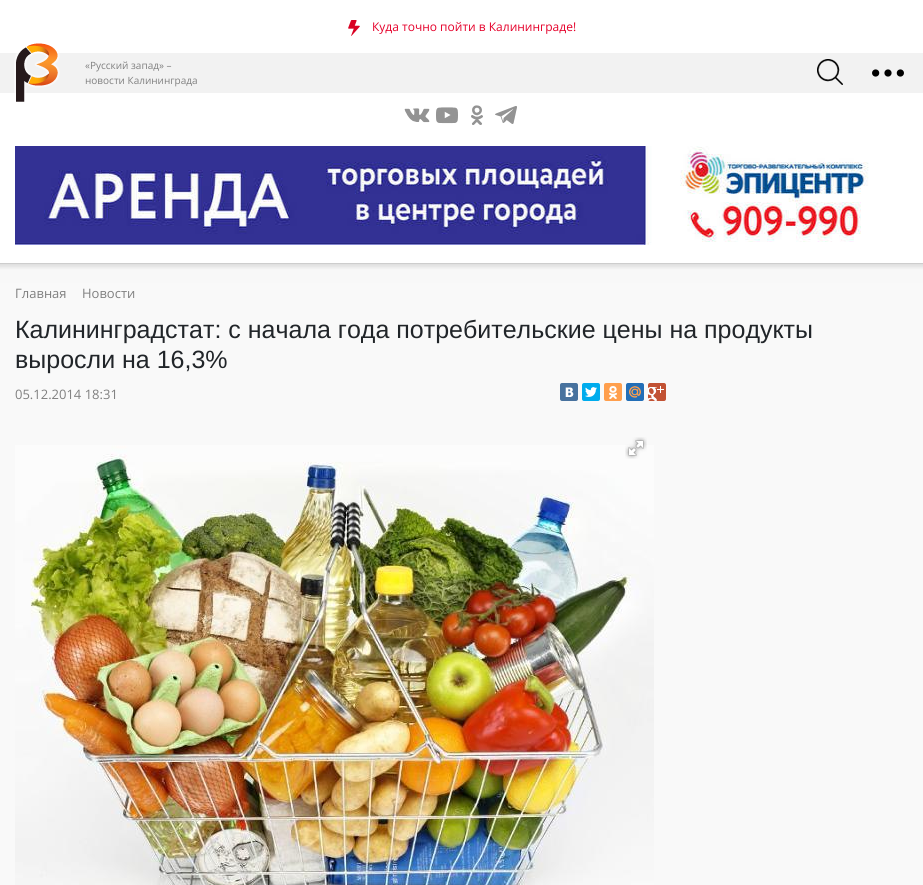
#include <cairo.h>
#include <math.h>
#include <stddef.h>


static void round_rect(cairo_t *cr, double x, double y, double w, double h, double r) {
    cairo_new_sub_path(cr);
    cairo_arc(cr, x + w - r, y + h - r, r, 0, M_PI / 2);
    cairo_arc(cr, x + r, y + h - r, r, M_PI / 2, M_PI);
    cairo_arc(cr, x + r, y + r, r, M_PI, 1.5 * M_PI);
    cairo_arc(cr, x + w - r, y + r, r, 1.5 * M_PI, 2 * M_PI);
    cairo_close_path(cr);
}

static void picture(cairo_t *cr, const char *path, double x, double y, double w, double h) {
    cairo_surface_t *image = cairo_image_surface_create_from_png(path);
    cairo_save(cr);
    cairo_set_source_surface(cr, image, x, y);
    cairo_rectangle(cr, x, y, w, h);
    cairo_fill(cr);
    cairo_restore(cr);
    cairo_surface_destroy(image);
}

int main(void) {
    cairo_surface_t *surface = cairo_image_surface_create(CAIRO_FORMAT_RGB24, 923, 885);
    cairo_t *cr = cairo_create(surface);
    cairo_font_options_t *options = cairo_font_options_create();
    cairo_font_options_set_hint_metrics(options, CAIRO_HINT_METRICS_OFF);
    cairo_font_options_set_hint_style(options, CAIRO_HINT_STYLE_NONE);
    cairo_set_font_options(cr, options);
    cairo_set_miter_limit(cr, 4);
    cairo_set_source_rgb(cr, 0.973, 0.973, 0.973);
    cairo_paint(cr);
    cairo_set_source_rgb(cr, 1, 1, 1);
    cairo_rectangle(cr, 0, 0, 923, 263);
    cairo_fill(cr);
    picture(cr, "img1.png", 348, 20, 12, 16);
    cairo_select_font_face(cr, "Open Sans", CAIRO_FONT_SLANT_NORMAL, CAIRO_FONT_WEIGHT_NORMAL);
    cairo_set_font_size(cr, 12);
    cairo_set_source_rgb(cr, 0.898, 0, 0.165);
    cairo_move_to(cr, 372, 31);
    cairo_show_text(cr, "Куда точно пойти в Калининграде!");
    cairo_set_source_rgb(cr, 0.949, 0.949, 0.949);
    cairo_rectangle(cr, 0, 53, 923, 40);
    cairo_fill(cr);
    picture(cr, "img2.png", 14, 43, 46, 59);
    cairo_set_font_size(cr, 10);
    cairo_set_source_rgb(cr, 0.502, 0.502, 0.502);
    cairo_move_to(cr, 85, 69);
    cairo_show_text(cr, "«Русский запад» –");
    cairo_move_to(cr, 85, 84);
    cairo_show_text(cr, "новости Калининграда");
    picture(cr, "img3.png", 817, 59, 26, 26);
    picture(cr, "img4.png", 872, 69, 32, 8);
    picture(cr, "img5.png", 404, 108, 26, 15);
    picture(cr, "img6.png", 436, 107, 22, 17);
    picture(cr, "img7.png", 471, 105, 12, 20);
    picture(cr, "img8.png", 495, 106, 22, 18);
    picture(cr, "img9.png", 15, 146, 854, 99);
    picture(cr, "img10.png", 0, 263, 923, 20);
    cairo_set_font_size(cr, 13);
    cairo_move_to(cr, 15, 298);
    cairo_show_text(cr, "Главная");
    cairo_move_to(cr, 82, 298);
    cairo_show_text(cr, "Новости");
    cairo_select_font_face(cr, "Liberation Sans", CAIRO_FONT_SLANT_NORMAL, CAIRO_FONT_WEIGHT_NORMAL);
    cairo_set_font_size(cr, 25);
    cairo_set_source_rgb(cr, 0.129, 0.145, 0.161);
    cairo_move_to(cr, 15, 338);
    cairo_show_text(cr, "Калининградстат: с начала года потребительские цены на продукты");
    cairo_move_to(cr, 15, 368);
    cairo_show_text(cr, "выросли на 16,3%");
    cairo_select_font_face(cr, "Open Sans", CAIRO_FONT_SLANT_NORMAL, CAIRO_FONT_WEIGHT_NORMAL);
    cairo_set_font_size(cr, 13);
    cairo_set_source_rgb(cr, 0.502, 0.502, 0.502);
    cairo_move_to(cr, 15, 399);
    cairo_show_text(cr, "05.12.2014 18:31");
    cairo_set_source_rgb(cr, 0.282, 0.447, 0.62);
    round_rect(cr, 560, 383, 18, 18, 2);
    cairo_fill(cr);
    picture(cr, "img11.png", 565, 387, 9, 10);
    cairo_set_source_rgb(cr, 0, 0.675, 0.929);
    round_rect(cr, 582, 383, 18, 18, 2);
    cairo_fill(cr);
    picture(cr, "img12.png", 585, 387, 12, 10);
    cairo_set_source_rgb(cr, 1, 0.624, 0.302);
    round_rect(cr, 604, 383, 18, 18, 2);
    cairo_fill(cr);
    picture(cr, "img13.png", 609, 386, 8, 13);
    cairo_set_source_rgb(cr, 0.133, 0.431, 0.718);
    round_rect(cr, 626, 383, 18, 18, 2);
    cairo_fill(cr);
    picture(cr, "img14.png", 629, 386, 12, 12);
    cairo_set_source_rgb(cr, 0.761, 0.322, 0.204);
    round_rect(cr, 648, 383, 18, 18, 2);
    cairo_fill(cr);
    picture(cr, "img15.png", 648, 386, 16, 15);
    picture(cr, "img17.png", 15, 445, 639, 440);
    picture(cr, "img16.png", 625, 437, 22, 22);
    cairo_surface_write_to_png(surface, "page.png");
    cairo_font_options_destroy(options);
    cairo_destroy(cr);
    cairo_surface_destroy(surface);
    return 0;
}
